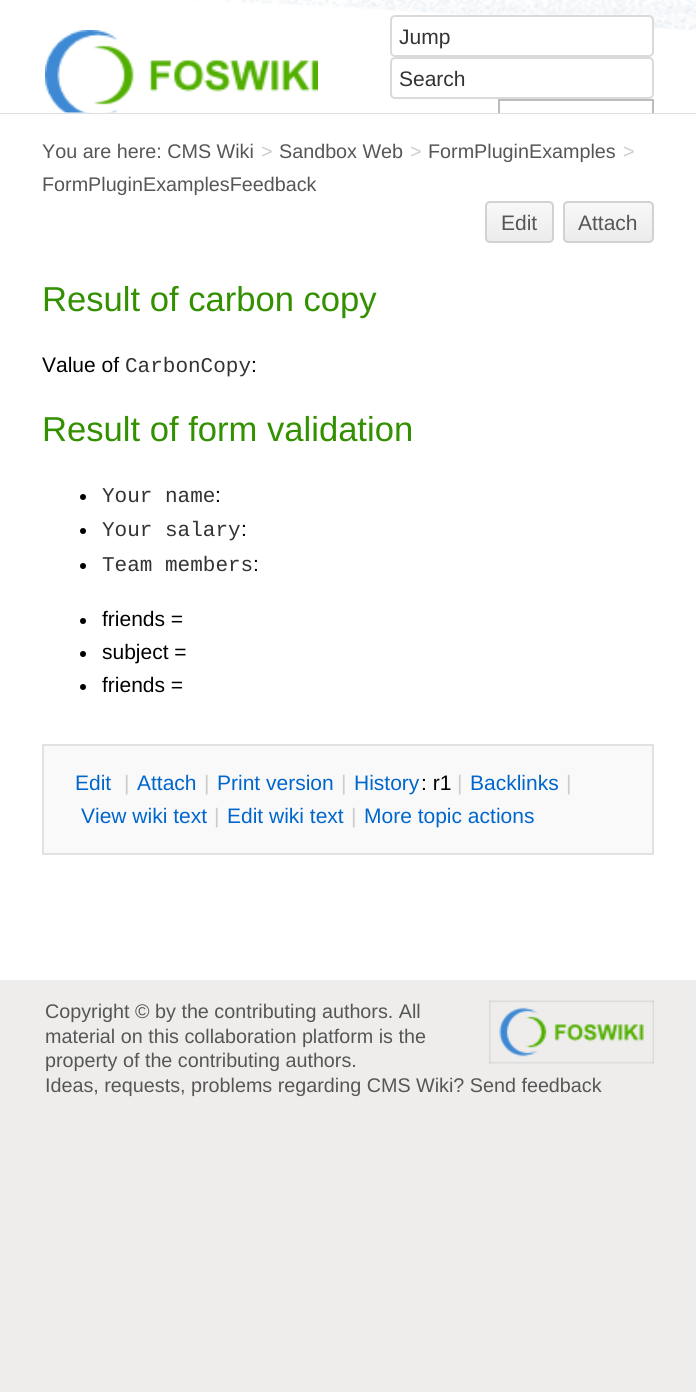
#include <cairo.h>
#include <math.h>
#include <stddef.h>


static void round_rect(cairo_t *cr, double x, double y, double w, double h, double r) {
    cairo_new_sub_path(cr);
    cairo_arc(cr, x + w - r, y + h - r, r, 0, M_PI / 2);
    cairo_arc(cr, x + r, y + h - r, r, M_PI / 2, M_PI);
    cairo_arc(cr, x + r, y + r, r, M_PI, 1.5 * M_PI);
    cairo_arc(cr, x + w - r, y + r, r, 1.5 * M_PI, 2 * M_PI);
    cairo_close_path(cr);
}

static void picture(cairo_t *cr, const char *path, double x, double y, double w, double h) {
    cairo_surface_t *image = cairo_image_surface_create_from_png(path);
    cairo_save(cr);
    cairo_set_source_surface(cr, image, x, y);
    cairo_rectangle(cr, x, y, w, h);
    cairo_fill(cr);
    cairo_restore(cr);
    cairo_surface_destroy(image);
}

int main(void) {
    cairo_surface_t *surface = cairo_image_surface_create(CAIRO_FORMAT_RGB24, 696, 1392);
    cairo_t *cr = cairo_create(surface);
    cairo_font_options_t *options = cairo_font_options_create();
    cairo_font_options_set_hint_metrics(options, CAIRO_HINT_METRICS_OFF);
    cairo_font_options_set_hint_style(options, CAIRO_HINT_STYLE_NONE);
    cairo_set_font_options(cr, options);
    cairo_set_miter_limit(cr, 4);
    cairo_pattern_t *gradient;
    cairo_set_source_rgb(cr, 0.933, 0.929, 0.925);
    cairo_paint(cr);
    cairo_set_source_rgb(cr, 0.875, 0.875, 0.875);
    cairo_rectangle(cr, 0, 113, 696, 1);
    cairo_fill(cr);
    cairo_set_source_rgb(cr, 1, 1, 1);
    cairo_rectangle(cr, 0, 0, 696, 113);
    cairo_fill(cr);
    picture(cr, "img1.png", 195, 0, 501, 30);
    picture(cr, "img2.png", 45, 30, 273, 83);
    round_rect(cr, 391, 16, 262, 40, 4);
    cairo_fill_preserve(cr);
    cairo_set_source_rgb(cr, 0.855, 0.855, 0.855);
    cairo_stroke(cr);
    cairo_select_font_face(cr, "Liberation Sans", CAIRO_FONT_SLANT_NORMAL, CAIRO_FONT_WEIGHT_NORMAL);
    cairo_set_font_size(cr, 21);
    cairo_set_source_rgb(cr, 0.2, 0.2, 0.2);
    cairo_move_to(cr, 399, 44);
    cairo_show_text(cr, "Jump");
    round_rect(cr, 391, 58, 262, 40, 4);
    cairo_set_source_rgb(cr, 0.855, 0.855, 0.855);
    cairo_stroke(cr);
    cairo_set_source_rgb(cr, 0.2, 0.2, 0.2);
    cairo_move_to(cr, 399, 86);
    cairo_show_text(cr, "Search");
    cairo_save(cr);
    cairo_rectangle(cr, 0, 0, 696, 113);
    cairo_clip(cr);
    cairo_rectangle(cr, 499, 100, 154, 37);
    cairo_set_source_rgb(cr, 0.733, 0.733, 0.733);
    cairo_stroke(cr);
    cairo_restore(cr);
    cairo_set_source_rgb(cr, 1, 1, 1);
    cairo_rectangle(cr, 0, 114, 696, 866);
    cairo_fill(cr);
    cairo_set_font_size(cr, 19.75);
    cairo_set_source_rgb(cr, 0.337, 0.337, 0.337);
    cairo_move_to(cr, 42, 158);
    cairo_show_text(cr, "You are here: CMS Wiki");
    cairo_set_source_rgb(cr, 0.8, 0.8, 0.8);
    cairo_move_to(cr, 261, 158);
    cairo_show_text(cr, ">");
    cairo_set_source_rgb(cr, 0.337, 0.337, 0.337);
    cairo_move_to(cr, 279, 158);
    cairo_show_text(cr, "Sandbox Web");
    cairo_set_source_rgb(cr, 0.8, 0.8, 0.8);
    cairo_move_to(cr, 410, 158);
    cairo_show_text(cr, ">");
    cairo_set_source_rgb(cr, 0.337, 0.337, 0.337);
    cairo_move_to(cr, 428, 158);
    cairo_show_text(cr, "FormPluginExamples");
    cairo_set_source_rgb(cr, 0.8, 0.8, 0.8);
    cairo_move_to(cr, 623, 158);
    cairo_show_text(cr, ">");
    cairo_set_source_rgb(cr, 0.337, 0.337, 0.337);
    cairo_move_to(cr, 42, 191);
    cairo_show_text(cr, "FormPluginExamplesFeedback");
    cairo_save(cr);
    round_rect(cr, 485, 201, 69, 42, 5);
    cairo_clip(cr);
    gradient = cairo_pattern_create_linear(519, 203, 519, 242);
    cairo_pattern_add_color_stop_rgba(gradient, 0, 0.973, 0.973, 0.973, 1);
    cairo_pattern_add_color_stop_rgba(gradient, 1, 0.922, 0.922, 0.922, 1);
    cairo_set_source(cr, gradient);
    cairo_pattern_destroy(gradient);
    cairo_rectangle(cr, 485, 203, 69, 39);
    cairo_fill(cr);
    cairo_restore(cr);
    round_rect(cr, 486, 202, 67, 40, 4);
    cairo_set_source_rgb(cr, 0.824, 0.824, 0.824);
    cairo_stroke(cr);
    cairo_set_font_size(cr, 21);
    cairo_set_source_rgb(cr, 0.337, 0.337, 0.337);
    cairo_move_to(cr, 501, 230);
    cairo_show_text(cr, "Edit");
    cairo_save(cr);
    round_rect(cr, 563, 201, 91, 42, 5);
    cairo_clip(cr);
    gradient = cairo_pattern_create_linear(608, 203, 608, 242);
    cairo_pattern_add_color_stop_rgba(gradient, 0, 0.973, 0.973, 0.973, 1);
    cairo_pattern_add_color_stop_rgba(gradient, 1, 0.922, 0.922, 0.922, 1);
    cairo_set_source(cr, gradient);
    cairo_pattern_destroy(gradient);
    cairo_rectangle(cr, 563, 203, 91, 39);
    cairo_fill(cr);
    cairo_restore(cr);
    round_rect(cr, 564, 202, 89, 40, 4);
    cairo_set_source_rgb(cr, 0.824, 0.824, 0.824);
    cairo_stroke(cr);
    cairo_set_source_rgb(cr, 0.337, 0.337, 0.337);
    cairo_move_to(cr, 578, 230);
    cairo_show_text(cr, "Attach");
    cairo_set_font_size(cr, 34.6);
    cairo_set_source_rgb(cr, 0.2, 0.565, 0);
    cairo_move_to(cr, 42, 311);
    cairo_show_text(cr, "Result of carbon copy");
    cairo_set_font_size(cr, 21);
    cairo_set_source_rgb(cr, 0, 0, 0);
    cairo_move_to(cr, 42, 372);
    cairo_show_text(cr, "Value of");
    cairo_select_font_face(cr, "Liberation Mono", CAIRO_FONT_SLANT_NORMAL, CAIRO_FONT_WEIGHT_NORMAL);
    cairo_set_source_rgb(cr, 0.2, 0.2, 0.2);
    cairo_move_to(cr, 125, 372);
    cairo_show_text(cr, "CarbonCopy");
    cairo_select_font_face(cr, "Liberation Sans", CAIRO_FONT_SLANT_NORMAL, CAIRO_FONT_WEIGHT_NORMAL);
    cairo_set_source_rgb(cr, 0, 0, 0);
    cairo_move_to(cr, 251, 372);
    cairo_show_text(cr, ":");
    cairo_set_font_size(cr, 34.6);
    cairo_set_source_rgb(cr, 0.2, 0.565, 0);
    cairo_move_to(cr, 42, 441);
    cairo_show_text(cr, "Result of form validation");
    cairo_set_source_rgb(cr, 0, 0, 0);
    cairo_new_path(cr);
    cairo_arc(cr, 83, 497, 3, 0, 2 * M_PI);
    cairo_fill(cr);
    cairo_select_font_face(cr, "Liberation Mono", CAIRO_FONT_SLANT_NORMAL, CAIRO_FONT_WEIGHT_NORMAL);
    cairo_set_font_size(cr, 21);
    cairo_set_source_rgb(cr, 0.2, 0.2, 0.2);
    cairo_move_to(cr, 102, 502);
    cairo_show_text(cr, "Your name");
    cairo_select_font_face(cr, "Liberation Sans", CAIRO_FONT_SLANT_NORMAL, CAIRO_FONT_WEIGHT_NORMAL);
    cairo_set_source_rgb(cr, 0, 0, 0);
    cairo_move_to(cr, 215, 502);
    cairo_show_text(cr, ":");
    cairo_new_path(cr);
    cairo_arc(cr, 83, 531, 3, 0, 2 * M_PI);
    cairo_fill(cr);
    cairo_select_font_face(cr, "Liberation Mono", CAIRO_FONT_SLANT_NORMAL, CAIRO_FONT_WEIGHT_NORMAL);
    cairo_set_source_rgb(cr, 0.2, 0.2, 0.2);
    cairo_move_to(cr, 102, 536);
    cairo_show_text(cr, "Your salary");
    cairo_select_font_face(cr, "Liberation Sans", CAIRO_FONT_SLANT_NORMAL, CAIRO_FONT_WEIGHT_NORMAL);
    cairo_set_source_rgb(cr, 0, 0, 0);
    cairo_move_to(cr, 241, 536);
    cairo_show_text(cr, ":");
    cairo_new_path(cr);
    cairo_arc(cr, 83, 566, 3, 0, 2 * M_PI);
    cairo_fill(cr);
    cairo_select_font_face(cr, "Liberation Mono", CAIRO_FONT_SLANT_NORMAL, CAIRO_FONT_WEIGHT_NORMAL);
    cairo_set_source_rgb(cr, 0.2, 0.2, 0.2);
    cairo_move_to(cr, 102, 571);
    cairo_show_text(cr, "Team members");
    cairo_select_font_face(cr, "Liberation Sans", CAIRO_FONT_SLANT_NORMAL, CAIRO_FONT_WEIGHT_NORMAL);
    cairo_set_source_rgb(cr, 0, 0, 0);
    cairo_move_to(cr, 253, 571);
    cairo_show_text(cr, ":");
    cairo_new_path(cr);
    cairo_arc(cr, 83, 621, 3, 0, 2 * M_PI);
    cairo_fill(cr);
    cairo_move_to(cr, 102, 626);
    cairo_show_text(cr, "friends =");
    cairo_new_path(cr);
    cairo_arc(cr, 83, 654, 3, 0, 2 * M_PI);
    cairo_fill(cr);
    cairo_move_to(cr, 102, 659);
    cairo_show_text(cr, "subject =");
    cairo_new_path(cr);
    cairo_arc(cr, 83, 687, 3, 0, 2 * M_PI);
    cairo_fill(cr);
    cairo_move_to(cr, 102, 692);
    cairo_show_text(cr, "friends =");
    cairo_set_source_rgb(cr, 0.976, 0.976, 0.98);
    cairo_rectangle(cr, 43, 745, 610, 109);
    cairo_fill_preserve(cr);
    cairo_set_source_rgb(cr, 0.886, 0.886, 0.886);
    cairo_stroke(cr);
    cairo_set_source_rgb(cr, 0, 0.4, 0.8);
    cairo_move_to(cr, 75, 790);
    cairo_show_text(cr, "Edit");
    cairo_set_source_rgb(cr, 0.8, 0.8, 0.8);
    cairo_move_to(cr, 124, 790);
    cairo_show_text(cr, "|");
    cairo_set_source_rgb(cr, 0, 0.4, 0.8);
    cairo_move_to(cr, 137, 790);
    cairo_show_text(cr, "Attach");
    cairo_set_source_rgb(cr, 0.8, 0.8, 0.8);
    cairo_move_to(cr, 204, 790);
    cairo_show_text(cr, "|");
    cairo_set_source_rgb(cr, 0, 0.4, 0.8);
    cairo_move_to(cr, 217, 790);
    cairo_show_text(cr, "Print version");
    cairo_set_source_rgb(cr, 0.8, 0.8, 0.8);
    cairo_move_to(cr, 341, 790);
    cairo_show_text(cr, "|");
    cairo_set_source_rgb(cr, 0, 0.4, 0.8);
    cairo_move_to(cr, 354, 790);
    cairo_show_text(cr, "History");
    cairo_set_source_rgb(cr, 0, 0, 0);
    cairo_move_to(cr, 421, 790);
    cairo_show_text(cr, ": r1");
    cairo_set_source_rgb(cr, 0.8, 0.8, 0.8);
    cairo_move_to(cr, 457, 790);
    cairo_show_text(cr, "|");
    cairo_set_source_rgb(cr, 0, 0.4, 0.8);
    cairo_move_to(cr, 470, 790);
    cairo_show_text(cr, "Backlinks");
    cairo_set_source_rgb(cr, 0.8, 0.8, 0.8);
    cairo_move_to(cr, 566, 790);
    cairo_show_text(cr, "|");
    cairo_set_source_rgb(cr, 0, 0.4, 0.8);
    cairo_move_to(cr, 81, 823);
    cairo_show_text(cr, "View wiki text");
    cairo_set_source_rgb(cr, 0.8, 0.8, 0.8);
    cairo_move_to(cr, 214, 823);
    cairo_show_text(cr, "|");
    cairo_set_source_rgb(cr, 0, 0.4, 0.8);
    cairo_move_to(cr, 227, 823);
    cairo_show_text(cr, "Edit wiki text");
    cairo_set_source_rgb(cr, 0.8, 0.8, 0.8);
    cairo_move_to(cr, 351, 823);
    cairo_show_text(cr, "|");
    cairo_set_source_rgb(cr, 0, 0.4, 0.8);
    cairo_move_to(cr, 364, 823);
    cairo_show_text(cr, "More topic actions");
    cairo_set_font_size(cr, 19.75);
    cairo_set_source_rgb(cr, 0.337, 0.337, 0.337);
    cairo_move_to(cr, 45, 1018);
    cairo_show_text(cr, "Copyright © by the contributing authors. All");
    picture(cr, "img3.png", 489, 1000, 165, 64);
    cairo_move_to(cr, 45, 1043);
    cairo_show_text(cr, "material on this collaboration platform is the");
    cairo_move_to(cr, 45, 1067);
    cairo_show_text(cr, "property of the contributing authors.");
    cairo_move_to(cr, 45, 1092);
    cairo_show_text(cr, "Ideas, requests, problems regarding CMS Wiki? Send feedback");
    cairo_surface_write_to_png(surface, "page.png");
    cairo_font_options_destroy(options);
    cairo_destroy(cr);
    cairo_surface_destroy(surface);
    return 0;
}
